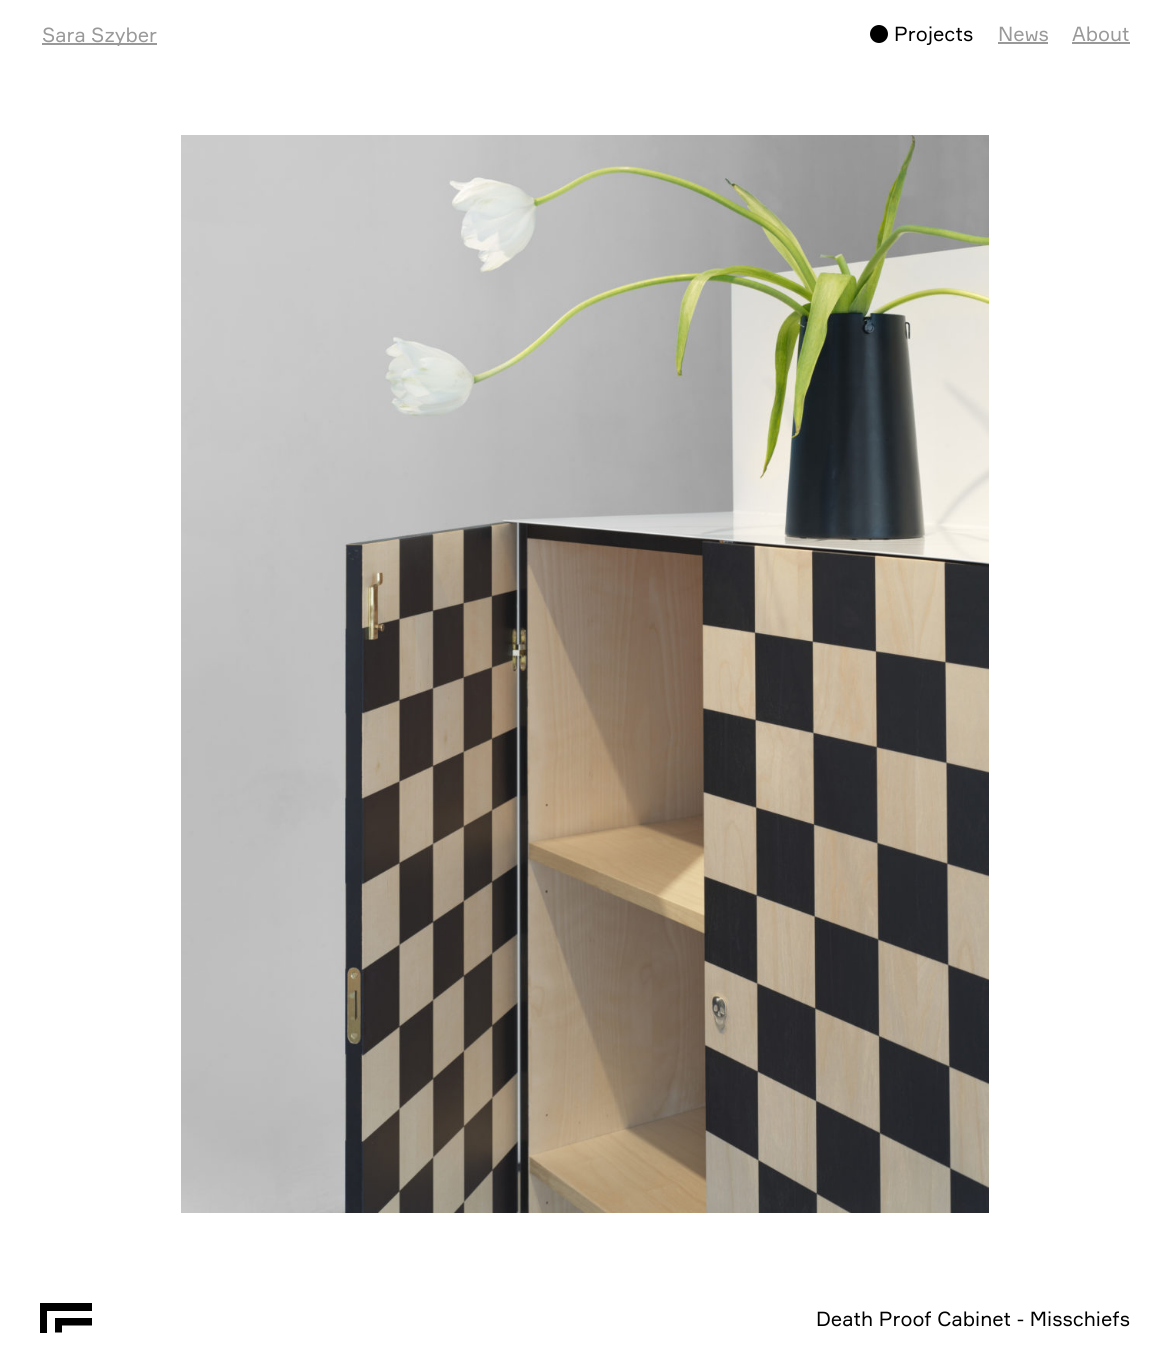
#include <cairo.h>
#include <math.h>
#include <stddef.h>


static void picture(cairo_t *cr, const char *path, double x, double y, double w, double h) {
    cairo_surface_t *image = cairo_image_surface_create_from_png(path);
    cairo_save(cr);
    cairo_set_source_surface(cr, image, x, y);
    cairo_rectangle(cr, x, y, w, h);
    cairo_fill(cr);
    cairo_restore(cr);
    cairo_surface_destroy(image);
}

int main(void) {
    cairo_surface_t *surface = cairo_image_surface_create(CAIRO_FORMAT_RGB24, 1170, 1353);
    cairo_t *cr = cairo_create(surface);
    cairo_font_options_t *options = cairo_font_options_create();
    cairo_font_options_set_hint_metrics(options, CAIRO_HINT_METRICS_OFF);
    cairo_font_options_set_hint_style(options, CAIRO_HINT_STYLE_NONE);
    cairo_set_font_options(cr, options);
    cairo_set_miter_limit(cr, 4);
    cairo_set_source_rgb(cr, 1, 1, 1);
    cairo_paint(cr);
    cairo_set_source_rgb(cr, 0.6, 0.6, 0.6);
    cairo_rectangle(cr, 42, 43, 115, 2);
    cairo_fill(cr);
    cairo_select_font_face(cr, "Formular", CAIRO_FONT_SLANT_NORMAL, CAIRO_FONT_WEIGHT_NORMAL);
    cairo_set_font_size(cr, 20);
    cairo_move_to(cr, 42, 42);
    cairo_show_text(cr, "Sara Szyber");
    picture(cr, "img1.png", 870, 25, 18, 18);
    cairo_set_source_rgb(cr, 0, 0, 0);
    cairo_move_to(cr, 894, 41);
    cairo_show_text(cr, "Projects");
    cairo_set_source_rgb(cr, 0.6, 0.6, 0.6);
    cairo_move_to(cr, 998, 41);
    cairo_show_text(cr, "News");
    cairo_rectangle(cr, 998, 42, 50, 2);
    cairo_fill(cr);
    cairo_move_to(cr, 1072, 41);
    cairo_show_text(cr, "About");
    cairo_rectangle(cr, 1072, 42, 58, 2);
    cairo_fill(cr);
    cairo_set_source_rgb(cr, 0, 0, 0);
    cairo_new_path(cr);
    cairo_move_to(cr, 40, 1303);
    cairo_line_to(cr, 40, 1333);
    cairo_line_to(cr, 47, 1333);
    cairo_line_to(cr, 47, 1311);
    cairo_line_to(cr, 92, 1311);
    cairo_line_to(cr, 92, 1303);
    cairo_close_path(cr);
    cairo_fill(cr);
    cairo_new_path(cr);
    cairo_move_to(cr, 55, 1332.5);
    cairo_line_to(cr, 62, 1332.5);
    cairo_line_to(cr, 62, 1325.5);
    cairo_line_to(cr, 92, 1325.5);
    cairo_line_to(cr, 92, 1318);
    cairo_line_to(cr, 55, 1318);
    cairo_close_path(cr);
    cairo_fill(cr);
    picture(cr, "img2.png", 181, 135, 808, 1078);
    cairo_move_to(cr, 816, 1326);
    cairo_show_text(cr, "Death Proof Cabinet - Misschiefs");
    cairo_surface_write_to_png(surface, "page.png");
    cairo_font_options_destroy(options);
    cairo_destroy(cr);
    cairo_surface_destroy(surface);
    return 0;
}
